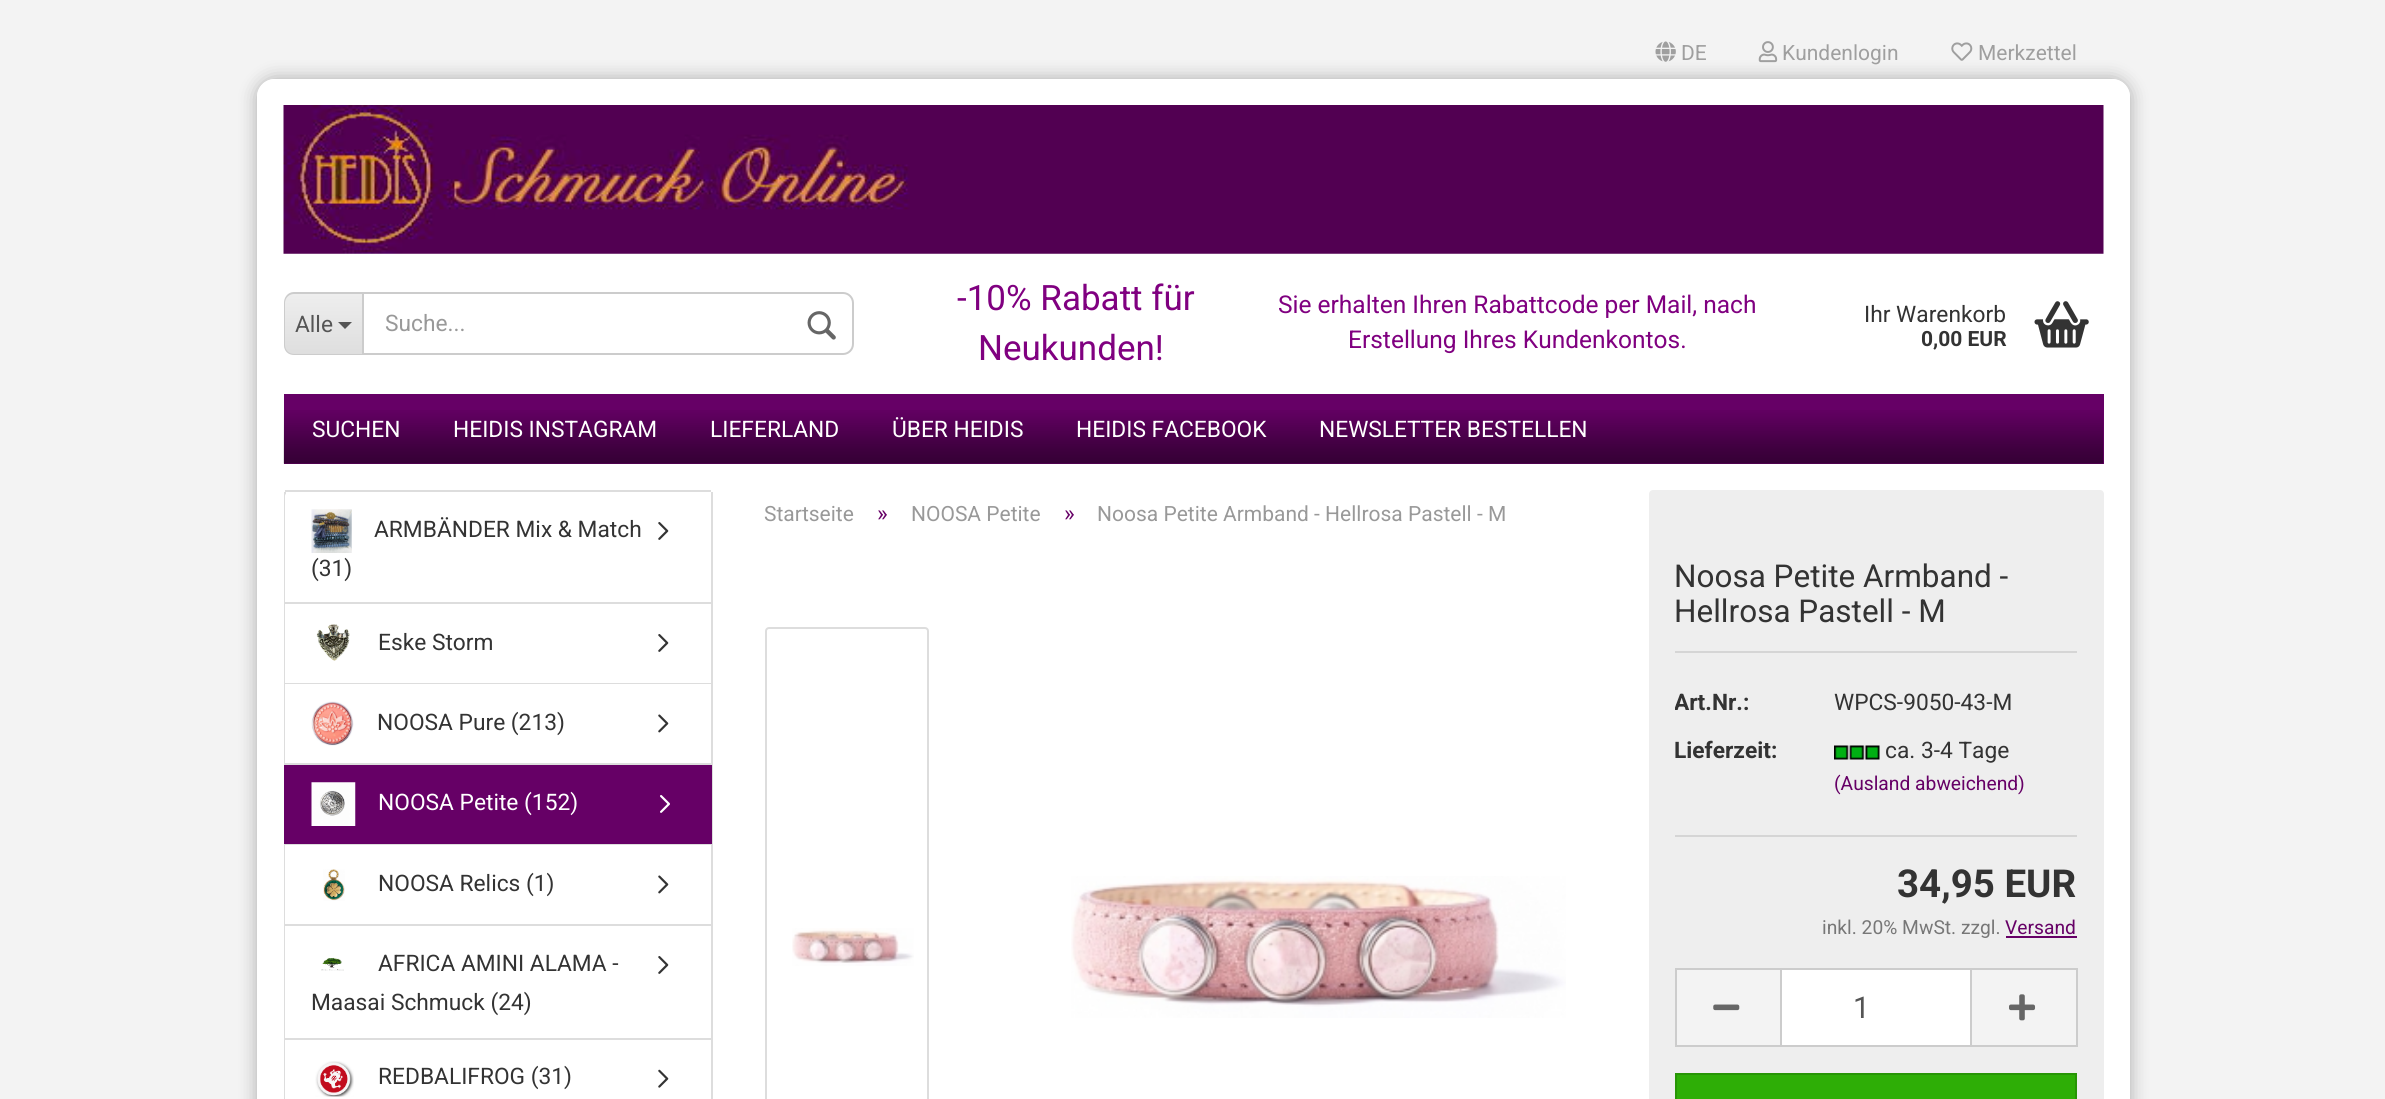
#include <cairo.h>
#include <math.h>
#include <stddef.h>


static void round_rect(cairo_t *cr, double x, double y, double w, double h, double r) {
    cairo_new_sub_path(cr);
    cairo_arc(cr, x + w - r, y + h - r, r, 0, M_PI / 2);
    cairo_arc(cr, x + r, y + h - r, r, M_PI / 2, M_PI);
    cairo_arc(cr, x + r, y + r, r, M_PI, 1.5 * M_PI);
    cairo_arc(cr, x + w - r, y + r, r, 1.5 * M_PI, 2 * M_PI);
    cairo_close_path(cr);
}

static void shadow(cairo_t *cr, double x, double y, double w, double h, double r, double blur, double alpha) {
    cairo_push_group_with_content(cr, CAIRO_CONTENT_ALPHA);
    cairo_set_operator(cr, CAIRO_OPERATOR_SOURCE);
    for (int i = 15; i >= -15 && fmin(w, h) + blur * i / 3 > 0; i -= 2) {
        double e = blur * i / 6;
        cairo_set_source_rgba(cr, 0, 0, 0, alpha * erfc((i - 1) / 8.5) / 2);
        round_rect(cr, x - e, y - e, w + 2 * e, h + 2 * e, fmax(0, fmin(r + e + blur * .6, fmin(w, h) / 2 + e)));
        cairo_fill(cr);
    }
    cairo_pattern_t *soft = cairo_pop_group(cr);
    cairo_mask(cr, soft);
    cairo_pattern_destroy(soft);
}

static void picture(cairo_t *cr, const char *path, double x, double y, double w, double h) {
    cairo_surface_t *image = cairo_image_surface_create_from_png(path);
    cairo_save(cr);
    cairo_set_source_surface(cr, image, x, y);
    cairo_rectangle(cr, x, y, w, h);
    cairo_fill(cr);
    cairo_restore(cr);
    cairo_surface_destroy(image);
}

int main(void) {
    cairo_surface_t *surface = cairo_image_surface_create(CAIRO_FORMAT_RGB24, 2385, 1099);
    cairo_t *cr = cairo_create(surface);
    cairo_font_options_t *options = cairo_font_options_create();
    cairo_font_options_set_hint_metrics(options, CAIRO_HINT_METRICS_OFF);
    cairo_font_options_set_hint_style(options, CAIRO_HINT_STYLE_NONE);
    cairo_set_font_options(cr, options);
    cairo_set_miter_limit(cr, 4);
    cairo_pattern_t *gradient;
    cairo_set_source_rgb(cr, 0.953, 0.953, 0.953);
    cairo_paint(cr);
    cairo_set_source_rgb(cr, 0, 0, 0);
    shadow(cr, 257, 79, 1873, 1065, 18, 9, 0.3);
    cairo_set_source_rgb(cr, 1, 1, 1);
    round_rect(cr, 257, 79, 1873, 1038, 18);
    cairo_fill(cr);
    cairo_new_path(cr);
    cairo_move_to(cr, 275, 79);
    cairo_line_to(cr, 2112, 79);
    cairo_curve_to(cr, 2122, 79, 2130, 87, 2130, 97);
    cairo_line_to(cr, 2130, 460);
    cairo_curve_to(cr, 2130, 462, 2128, 464, 2126, 464);
    cairo_line_to(cr, 261, 464);
    cairo_curve_to(cr, 259, 464, 257, 462, 257, 460);
    cairo_line_to(cr, 257, 97);
    cairo_curve_to(cr, 257, 87, 265, 79, 275, 79);
    cairo_close_path(cr);
    cairo_fill(cr);
    picture(cr, "img1.png", 1655, 41, 21, 21);
    cairo_select_font_face(cr, "Roboto", CAIRO_FONT_SLANT_NORMAL, CAIRO_FONT_WEIGHT_NORMAL);
    cairo_set_font_size(cr, 21);
    cairo_set_source_rgb(cr, 0.624, 0.624, 0.624);
    cairo_move_to(cr, 1681, 60);
    cairo_show_text(cr, "DE");
    picture(cr, "img2.png", 1758, 41, 20, 22);
    cairo_move_to(cr, 1782, 60);
    cairo_show_text(cr, "Kundenlogin");
    picture(cr, "img3.png", 1951, 42, 22, 19);
    cairo_move_to(cr, 1978, 60);
    cairo_show_text(cr, "Merkzettel");
    picture(cr, "img4.png", 283, 105, 1821, 149);
    cairo_save(cr);
    cairo_new_path(cr);
    cairo_move_to(cr, 295, 292);
    cairo_line_to(cr, 362, 292);
    cairo_line_to(cr, 362, 355);
    cairo_line_to(cr, 295, 355);
    cairo_curve_to(cr, 289, 355, 284, 350, 284, 344);
    cairo_line_to(cr, 284, 303);
    cairo_curve_to(cr, 284, 297, 289, 292, 295, 292);
    cairo_close_path(cr);
    cairo_clip(cr);
    gradient = cairo_pattern_create_linear(324, 294, 324, 354);
    cairo_pattern_add_color_stop_rgba(gradient, 0, 0.933, 0.933, 0.933, 1);
    cairo_pattern_add_color_stop_rgba(gradient, 1, 0.871, 0.871, 0.871, 1);
    cairo_set_source(cr, gradient);
    cairo_pattern_destroy(gradient);
    cairo_rectangle(cr, 284, 294, 78, 60);
    cairo_fill(cr);
    cairo_restore(cr);
    cairo_set_source_rgb(cr, 0.8, 0.8, 0.8);
    cairo_set_fill_rule(cr, CAIRO_FILL_RULE_EVEN_ODD);
    cairo_new_path(cr);
    cairo_move_to(cr, 294, 292);
    cairo_line_to(cr, 362, 292);
    cairo_line_to(cr, 362, 355);
    cairo_line_to(cr, 294, 355);
    cairo_curve_to(cr, 288, 355, 284, 351, 284, 345);
    cairo_line_to(cr, 284, 303);
    cairo_curve_to(cr, 284, 297, 288, 292, 294, 292);
    cairo_close_path(cr);
    cairo_move_to(cr, 294, 294);
    cairo_line_to(cr, 362, 294);
    cairo_line_to(cr, 362, 354);
    cairo_line_to(cr, 294, 354);
    cairo_curve_to(cr, 289, 354, 285, 350, 285, 345);
    cairo_line_to(cr, 285, 303);
    cairo_curve_to(cr, 285, 298, 289, 294, 294, 294);
    cairo_close_path(cr);
    cairo_fill(cr);
    cairo_set_font_size(cr, 22.75);
    cairo_set_source_rgb(cr, 0.333, 0.333, 0.333);
    cairo_move_to(cr, 295, 332);
    cairo_show_text(cr, "Alle");
    cairo_set_fill_rule(cr, CAIRO_FILL_RULE_WINDING);
    cairo_new_path(cr);
    cairo_move_to(cr, 338, 322);
    cairo_line_to(cr, 352, 322);
    cairo_line_to(cr, 345, 329);
    cairo_close_path(cr);
    cairo_fill(cr);
    cairo_new_path(cr);
    cairo_move_to(cr, 363, 293);
    cairo_line_to(cr, 843, 293);
    cairo_curve_to(cr, 848.5, 293, 853, 297.5, 853, 303);
    cairo_line_to(cr, 853, 344);
    cairo_curve_to(cr, 853, 349.5, 848.5, 354, 843, 354);
    cairo_line_to(cr, 363, 354);
    cairo_close_path(cr);
    cairo_set_source_rgb(cr, 0.8, 0.8, 0.8);
    cairo_stroke(cr);
    cairo_set_source_rgb(cr, 0.6, 0.6, 0.6);
    cairo_move_to(cr, 385, 331);
    cairo_show_text(cr, "Suche...");
    picture(cr, "img5.png", 807, 311, 29, 29);
    cairo_set_font_size(cr, 35);
    cairo_set_source_rgb(cr, 0.502, 0, 0.502);
    cairo_move_to(cr, 957, 310);
    cairo_show_text(cr, "-10% Rabatt für");
    cairo_move_to(cr, 978, 360);
    cairo_show_text(cr, "Neukunden!");
    cairo_set_font_size(cr, 24.5);
    cairo_move_to(cr, 1278, 313);
    cairo_show_text(cr, "Sie erhalten Ihren Rabattcode per Mail, nach");
    cairo_move_to(cr, 1348, 348);
    cairo_show_text(cr, "Erstellung Ihres Kundenkontos.");
    cairo_set_font_size(cr, 22.75);
    cairo_set_source_rgb(cr, 0.2, 0.2, 0.2);
    cairo_move_to(cr, 1864, 322);
    cairo_show_text(cr, "Ihr Warenkorb");
    cairo_select_font_face(cr, "Roboto", CAIRO_FONT_SLANT_NORMAL, CAIRO_FONT_WEIGHT_BOLD);
    cairo_set_font_size(cr, 21);
    cairo_move_to(cr, 1921, 346);
    cairo_show_text(cr, "0,00 EUR");
    picture(cr, "img6.png", 2034, 301, 55, 47);
    cairo_set_source_rgb(cr, 0.4, 0, 0.4);
    cairo_rectangle(cr, 284, 394, 1820, 70);
    cairo_fill(cr);
    picture(cr, "img7.png", 283, 410, 1821, 54);
    cairo_select_font_face(cr, "Roboto", CAIRO_FONT_SLANT_NORMAL, CAIRO_FONT_WEIGHT_NORMAL);
    cairo_set_font_size(cr, 22.75);
    cairo_set_source_rgb(cr, 1, 1, 1);
    cairo_move_to(cr, 312, 437);
    cairo_show_text(cr, "SUCHEN");
    cairo_move_to(cr, 453, 437);
    cairo_show_text(cr, "HEIDIS INSTAGRAM");
    cairo_move_to(cr, 710, 437);
    cairo_show_text(cr, "LIEFERLAND");
    cairo_move_to(cr, 892, 437);
    cairo_show_text(cr, "ÜBER HEIDIS");
    cairo_move_to(cr, 1076, 437);
    cairo_show_text(cr, "HEIDIS FACEBOOK");
    cairo_move_to(cr, 1319, 437);
    cairo_show_text(cr, "NEWSLETTER BESTELLEN");
    cairo_set_source_rgb(cr, 0.867, 0.867, 0.867);
    cairo_rectangle(cr, 285, 490, 426, 2);
    cairo_fill(cr);
    cairo_rectangle(cr, 711, 492, 2, 607);
    cairo_fill(cr);
    cairo_rectangle(cr, 284, 492, 2, 607);
    cairo_fill(cr);
    cairo_rectangle(cr, 285, 602, 426, 2);
    cairo_fill(cr);
    cairo_set_source_rgb(cr, 1, 1, 1);
    cairo_new_path(cr);
    cairo_move_to(cr, 289, 492);
    cairo_line_to(cr, 707, 492);
    cairo_curve_to(cr, 709, 492, 711, 494, 711, 496);
    cairo_line_to(cr, 711, 602);
    cairo_line_to(cr, 285, 602);
    cairo_line_to(cr, 285, 496);
    cairo_curve_to(cr, 285, 494, 287, 492, 289, 492);
    cairo_close_path(cr);
    cairo_fill(cr);
    picture(cr, "img8.png", 311, 509, 41, 44);
    cairo_set_source_rgb(cr, 0.2, 0.2, 0.2);
    cairo_move_to(cr, 374, 537);
    cairo_show_text(cr, "ARMBÄNDER Mix & Match");
    picture(cr, "img9.png", 658, 522, 11, 18);
    cairo_move_to(cr, 311, 576);
    cairo_show_text(cr, "(31)");
    cairo_set_source_rgb(cr, 0.867, 0.867, 0.867);
    cairo_rectangle(cr, 285, 683, 426, 1);
    cairo_fill(cr);
    cairo_set_source_rgb(cr, 1, 1, 1);
    cairo_rectangle(cr, 285, 604, 1, 79);
    cairo_fill(cr);
    picture(cr, "img10.png", 316, 624, 34, 37);
    cairo_set_source_rgb(cr, 0.2, 0.2, 0.2);
    cairo_move_to(cr, 378, 650);
    cairo_show_text(cr, "Eske Storm");
    picture(cr, "img9.png", 658, 634, 11, 18);
    cairo_set_source_rgb(cr, 0.867, 0.867, 0.867);
    cairo_rectangle(cr, 285, 763, 426, 2);
    cairo_fill(cr);
    cairo_set_source_rgb(cr, 1, 1, 1);
    cairo_rectangle(cr, 285, 684, 1, 79);
    cairo_fill(cr);
    picture(cr, "img11.png", 311, 701, 43, 45);
    cairo_set_source_rgb(cr, 0.2, 0.2, 0.2);
    cairo_move_to(cr, 377, 730);
    cairo_show_text(cr, "NOOSA Pure (213)");
    picture(cr, "img12.png", 658, 714, 11, 19);
    cairo_set_source_rgb(cr, 0.867, 0.867, 0.867);
    cairo_rectangle(cr, 285, 844, 426, 1);
    cairo_fill(cr);
    cairo_set_source_rgb(cr, 0.4, 0, 0.4);
    cairo_rectangle(cr, 284, 765, 428, 79);
    cairo_fill(cr);
    picture(cr, "img13.png", 311, 782, 45, 44);
    cairo_set_source_rgb(cr, 1, 1, 1);
    cairo_move_to(cr, 378, 810);
    cairo_show_text(cr, "NOOSA Petite (152)");
    picture(cr, "img14.png", 660, 795, 10, 18);
    cairo_set_source_rgb(cr, 0.867, 0.867, 0.867);
    cairo_rectangle(cr, 285, 924, 426, 2);
    cairo_fill(cr);
    cairo_set_source_rgb(cr, 1, 1, 1);
    cairo_rectangle(cr, 285, 845, 1, 79);
    cairo_fill(cr);
    picture(cr, "img15.png", 323, 869, 22, 32);
    cairo_set_source_rgb(cr, 0.2, 0.2, 0.2);
    cairo_move_to(cr, 378, 891);
    cairo_show_text(cr, "NOOSA Relics (1)");
    picture(cr, "img12.png", 658, 875, 11, 19);
    cairo_set_source_rgb(cr, 0.867, 0.867, 0.867);
    cairo_rectangle(cr, 285, 1038, 426, 2);
    cairo_fill(cr);
    cairo_set_source_rgb(cr, 1, 1, 1);
    cairo_rectangle(cr, 285, 926, 1, 112);
    cairo_fill(cr);
    picture(cr, "img16.png", 321, 957, 23, 14);
    cairo_set_source_rgb(cr, 0.2, 0.2, 0.2);
    cairo_move_to(cr, 378, 971);
    cairo_show_text(cr, "AFRICA AMINI ALAMA -");
    picture(cr, "img9.png", 658, 956, 11, 18);
    cairo_move_to(cr, 311, 1010);
    cairo_show_text(cr, "Maasai Schmuck (24)");
    cairo_set_source_rgb(cr, 1, 1, 1);
    cairo_rectangle(cr, 285, 1040, 1, 59);
    cairo_fill(cr);
    picture(cr, "img17.png", 315, 1061, 39, 36);
    cairo_set_source_rgb(cr, 0.2, 0.2, 0.2);
    cairo_move_to(cr, 378, 1084);
    cairo_show_text(cr, "REDBALIFROG (31)");
    picture(cr, "img18.png", 658, 1069, 11, 19);
    cairo_set_font_size(cr, 21);
    cairo_set_source_rgb(cr, 0.6, 0.6, 0.6);
    cairo_move_to(cr, 764, 521);
    cairo_show_text(cr, "Startseite");
    cairo_set_font_size(cr, 22.75);
    cairo_set_source_rgb(cr, 0.4, 0, 0.4);
    cairo_move_to(cr, 877, 521);
    cairo_show_text(cr, "»");
    cairo_set_font_size(cr, 21);
    cairo_set_source_rgb(cr, 0.6, 0.6, 0.6);
    cairo_move_to(cr, 911, 521);
    cairo_show_text(cr, "NOOSA Petite");
    cairo_set_font_size(cr, 22.75);
    cairo_set_source_rgb(cr, 0.4, 0, 0.4);
    cairo_move_to(cr, 1064, 521);
    cairo_show_text(cr, "»");
    cairo_set_font_size(cr, 21);
    cairo_set_source_rgb(cr, 0.6, 0.6, 0.6);
    cairo_move_to(cr, 1097, 521);
    cairo_show_text(cr, "Noosa Petite Armband - Hellrosa Pastell - M");
    round_rect(cr, 766, 628, 162, 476, 3);
    cairo_set_source_rgb(cr, 0.867, 0.867, 0.867);
    cairo_stroke(cr);
    picture(cr, "img19.png", 792, 928, 122, 38);
    picture(cr, "img20.png", 1071, 876, 495, 142);
    cairo_set_source_rgb(cr, 0.933, 0.933, 0.933);
    round_rect(cr, 1649, 490, 455, 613, 4);
    cairo_fill(cr);
    cairo_set_source_rgb(cr, 0.835, 0.835, 0.835);
    cairo_rectangle(cr, 1675, 651, 402, 2);
    cairo_fill(cr);
    cairo_set_font_size(cr, 31.5);
    cairo_set_source_rgb(cr, 0.2, 0.2, 0.2);
    cairo_move_to(cr, 1674, 587);
    cairo_show_text(cr, "Noosa Petite Armband -");
    cairo_move_to(cr, 1674, 622);
    cairo_show_text(cr, "Hellrosa Pastell - M");
    cairo_set_source_rgb(cr, 0.835, 0.835, 0.835);
    cairo_rectangle(cr, 1675, 835, 402, 2);
    cairo_fill(cr);
    cairo_save(cr);
    cairo_rectangle(cr, 1675, 679, 133, 49);
    cairo_clip(cr);
    cairo_select_font_face(cr, "Roboto", CAIRO_FONT_SLANT_NORMAL, CAIRO_FONT_WEIGHT_BOLD);
    cairo_set_font_size(cr, 22.75);
    cairo_set_source_rgb(cr, 0.2, 0.2, 0.2);
    cairo_move_to(cr, 1674, 710);
    cairo_show_text(cr, "Art.Nr.:");
    cairo_restore(cr);
    cairo_set_font_size(cr, 22.75);
    cairo_set_source_rgb(cr, 0.2, 0.2, 0.2);
    cairo_move_to(cr, 1834, 710);
    cairo_show_text(cr, "WPCS-9050-43-M");
    cairo_select_font_face(cr, "Roboto", CAIRO_FONT_SLANT_NORMAL, CAIRO_FONT_WEIGHT_BOLD);
    cairo_move_to(cr, 1674, 758);
    cairo_show_text(cr, "Lieferzeit:");
    picture(cr, "img21.png", 1834, 745, 46, 15);
    cairo_select_font_face(cr, "Roboto", CAIRO_FONT_SLANT_NORMAL, CAIRO_FONT_WEIGHT_NORMAL);
    cairo_move_to(cr, 1885, 758);
    cairo_show_text(cr, "ca. 3-4 Tage");
    cairo_set_font_size(cr, 19.25);
    cairo_set_source_rgb(cr, 0.4, 0, 0.4);
    cairo_move_to(cr, 1834, 790);
    cairo_show_text(cr, "(Ausland abweichend)");
    cairo_select_font_face(cr, "Roboto", CAIRO_FONT_SLANT_NORMAL, CAIRO_FONT_WEIGHT_BOLD);
    cairo_set_font_size(cr, 38.5);
    cairo_set_source_rgb(cr, 0.2, 0.2, 0.2);
    cairo_move_to(cr, 1897, 897);
    cairo_show_text(cr, "34,95 EUR");
    cairo_select_font_face(cr, "Roboto", CAIRO_FONT_SLANT_NORMAL, CAIRO_FONT_WEIGHT_NORMAL);
    cairo_set_font_size(cr, 19.25);
    cairo_set_source_rgb(cr, 0.467, 0.467, 0.467);
    cairo_move_to(cr, 1822, 934);
    cairo_show_text(cr, "inkl. 20% MwSt. zzgl.");
    cairo_set_source_rgb(cr, 0.4, 0, 0.4);
    cairo_move_to(cr, 2005, 934);
    cairo_show_text(cr, "Versand");
    cairo_rectangle(cr, 2006, 936, 71, 2);
    cairo_fill(cr);
    cairo_set_source_rgb(cr, 0.953, 0.953, 0.953);
    cairo_rectangle(cr, 1677, 970, 103, 75);
    cairo_fill(cr);
    cairo_set_source_rgb(cr, 0.8, 0.8, 0.8);
    cairo_rectangle(cr, 1675, 968, 105, 2);
    cairo_fill(cr);
    cairo_rectangle(cr, 1675, 1045, 105, 2);
    cairo_fill(cr);
    cairo_rectangle(cr, 1675, 968, 2, 79);
    cairo_fill(cr);
    picture(cr, "img22.png", 1713, 1004, 27, 7);
    cairo_set_source_rgb(cr, 1, 1, 1);
    cairo_rectangle(cr, 1781, 969, 190, 77);
    cairo_fill_preserve(cr);
    cairo_set_source_rgb(cr, 0.8, 0.8, 0.8);
    cairo_stroke(cr);
    cairo_set_font_size(cr, 30);
    cairo_set_source_rgb(cr, 0.333, 0.333, 0.333);
    cairo_move_to(cr, 1853, 1018);
    cairo_show_text(cr, "1");
    cairo_set_source_rgb(cr, 0.953, 0.953, 0.953);
    cairo_rectangle(cr, 1972, 970, 104, 75);
    cairo_fill(cr);
    cairo_set_source_rgb(cr, 0.8, 0.8, 0.8);
    cairo_rectangle(cr, 1972, 968, 105, 2);
    cairo_fill(cr);
    cairo_rectangle(cr, 2076, 968, 2, 79);
    cairo_fill(cr);
    cairo_rectangle(cr, 1972, 1045, 105, 2);
    cairo_fill(cr);
    picture(cr, "img23.png", 2009, 994, 27, 27);
    cairo_set_source_rgb(cr, 0.18, 0.682, 0.024);
    cairo_rectangle(cr, 1676, 1074, 400, 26);
    cairo_fill_preserve(cr);
    cairo_set_source_rgb(cr, 0.153, 0.584, 0.02);
    cairo_stroke(cr);
    cairo_surface_write_to_png(surface, "page.png");
    cairo_font_options_destroy(options);
    cairo_destroy(cr);
    cairo_surface_destroy(surface);
    return 0;
}
